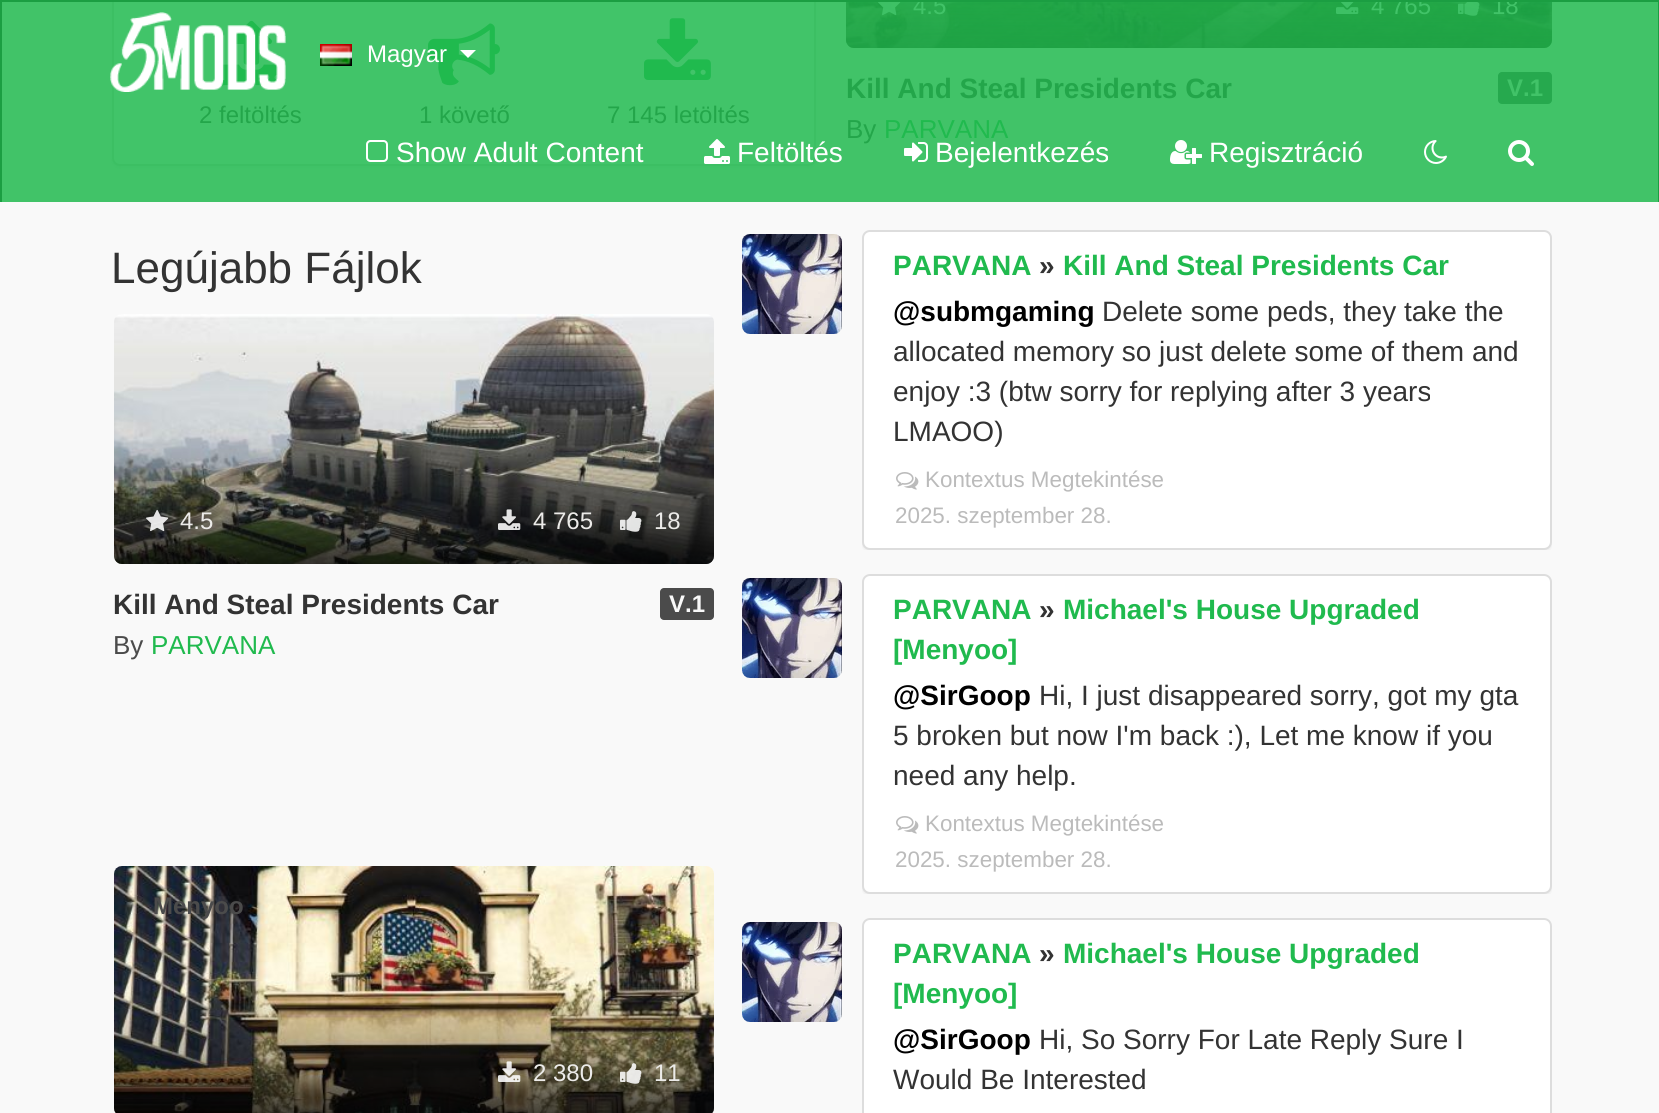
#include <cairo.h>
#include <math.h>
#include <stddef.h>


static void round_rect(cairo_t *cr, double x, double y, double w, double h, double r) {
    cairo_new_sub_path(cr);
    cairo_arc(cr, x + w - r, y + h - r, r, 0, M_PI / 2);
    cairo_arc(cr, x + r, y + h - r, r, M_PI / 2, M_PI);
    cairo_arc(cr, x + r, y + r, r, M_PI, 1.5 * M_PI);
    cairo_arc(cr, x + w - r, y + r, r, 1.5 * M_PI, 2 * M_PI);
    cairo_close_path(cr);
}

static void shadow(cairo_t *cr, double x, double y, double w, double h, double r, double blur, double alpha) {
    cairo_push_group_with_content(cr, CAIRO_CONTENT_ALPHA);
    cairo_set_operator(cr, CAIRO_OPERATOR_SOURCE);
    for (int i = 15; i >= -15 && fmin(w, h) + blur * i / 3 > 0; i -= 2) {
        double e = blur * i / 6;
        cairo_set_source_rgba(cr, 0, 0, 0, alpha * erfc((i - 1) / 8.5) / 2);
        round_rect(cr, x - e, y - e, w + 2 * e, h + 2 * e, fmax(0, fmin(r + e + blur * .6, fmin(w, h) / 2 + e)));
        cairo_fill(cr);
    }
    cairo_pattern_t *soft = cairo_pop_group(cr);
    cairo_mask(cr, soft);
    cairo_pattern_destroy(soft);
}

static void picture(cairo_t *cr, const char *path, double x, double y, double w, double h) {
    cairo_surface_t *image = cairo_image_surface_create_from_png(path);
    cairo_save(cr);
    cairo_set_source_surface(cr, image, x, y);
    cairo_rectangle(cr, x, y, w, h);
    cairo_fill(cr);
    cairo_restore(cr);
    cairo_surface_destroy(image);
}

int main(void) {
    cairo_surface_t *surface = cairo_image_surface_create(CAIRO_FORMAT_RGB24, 1659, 1113);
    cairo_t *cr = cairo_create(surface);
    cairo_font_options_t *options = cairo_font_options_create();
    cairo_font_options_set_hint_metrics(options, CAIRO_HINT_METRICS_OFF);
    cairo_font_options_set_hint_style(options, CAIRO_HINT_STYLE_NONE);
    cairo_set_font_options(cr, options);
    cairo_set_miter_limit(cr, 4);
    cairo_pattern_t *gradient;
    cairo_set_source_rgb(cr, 0.976, 0.976, 0.976);
    cairo_paint(cr);
    cairo_set_source_rgb(cr, 0.255, 0.765, 0.408);
    cairo_rectangle(cr, 2, 2, 1656, 200);
    cairo_fill(cr);
    cairo_set_source_rgb(cr, 0.106, 0.62, 0.259);
    shadow(cr, 112, -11, 704, 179, 8, 1, 0.05);
    cairo_set_source_rgb(cr, 0.255, 0.769, 0.412);
    round_rect(cr, 113, -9, 702, 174, 7);
    cairo_fill_preserve(cr);
    cairo_set_source_rgb(cr, 0.235, 0.749, 0.388);
    cairo_stroke(cr);
    picture(cr, "img1.png", 220, 20, 65, 66);
    cairo_select_font_face(cr, "Liberation Sans", CAIRO_FONT_SLANT_NORMAL, CAIRO_FONT_WEIGHT_NORMAL);
    cairo_set_font_size(cr, 24);
    cairo_set_source_rgb(cr, 0.137, 0.651, 0.29);
    cairo_move_to(cr, 199, 123);
    cairo_show_text(cr, "2 feltöltés");
    picture(cr, "img2.png", 428, 23, 72, 63);
    cairo_move_to(cr, 419, 123);
    cairo_show_text(cr, "1 követő");
    picture(cr, "img3.png", 644, 18, 67, 62);
    cairo_move_to(cr, 607, 123);
    cairo_show_text(cr, "7 145 letöltés");
    picture(cr, "img7.png", 846, 2, 706, 46);
    gradient = cairo_pattern_create_linear(1199, -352, 1199, 48);
    cairo_pattern_add_color_stop_rgba(gradient, 0.5, 0.106, 0.62, 0.259, 0);
    cairo_pattern_add_color_stop_rgba(gradient, 0.75, 0.106, 0.62, 0.259, 0.25);
    cairo_pattern_add_color_stop_rgba(gradient, 1, 0.106, 0.62, 0.259, 0.75);
    cairo_set_source(cr, gradient);
    cairo_pattern_destroy(gradient);
    round_rect(cr, 846, -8, 706, 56, 8);
    cairo_fill(cr);
    picture(cr, "img4.png", 878, 2, 23, 14);
    cairo_set_source_rgb(cr, 0.255, 0.765, 0.408);
    cairo_move_to(cr, 913, 14);
    cairo_show_text(cr, "4.5");
    picture(cr, "img5.png", 1336, 2, 23, 12);
    cairo_move_to(cr, 1371, 14);
    cairo_show_text(cr, "4 765");
    picture(cr, "img6.png", 1458, 2, 22, 14);
    cairo_move_to(cr, 1492, 14);
    cairo_show_text(cr, "18");
    cairo_select_font_face(cr, "Liberation Sans", CAIRO_FONT_SLANT_NORMAL, CAIRO_FONT_WEIGHT_BOLD);
    cairo_set_font_size(cr, 28);
    cairo_set_source_rgb(cr, 0.137, 0.651, 0.29);
    cairo_move_to(cr, 846, 98);
    cairo_show_text(cr, "Kill And Steal Presidents Car");
    cairo_set_source_rgb(cr, 0.149, 0.663, 0.306);
    round_rect(cr, 1498, 72, 54, 32, 4);
    cairo_fill(cr);
    cairo_set_font_size(cr, 24);
    cairo_set_source_rgb(cr, 0.255, 0.765, 0.408);
    cairo_move_to(cr, 1507, 96);
    cairo_show_text(cr, "V.1");
    cairo_select_font_face(cr, "Liberation Sans", CAIRO_FONT_SLANT_NORMAL, CAIRO_FONT_WEIGHT_NORMAL);
    cairo_set_font_size(cr, 26);
    cairo_set_source_rgb(cr, 0.137, 0.651, 0.29);
    cairo_move_to(cr, 846, 138);
    cairo_show_text(cr, "By");
    cairo_set_source_rgb(cr, 0.125, 0.729, 0.306);
    cairo_move_to(cr, 884, 138);
    cairo_show_text(cr, "PARVANA");
    cairo_set_font_size(cr, 44);
    cairo_set_source_rgb(cr, 0.2, 0.2, 0.2);
    cairo_move_to(cr, 111, 283);
    cairo_show_text(cr, "Legújabb Fájlok");
    picture(cr, "img8.png", 114, 314, 600, 250);
    gradient = cairo_pattern_create_linear(414, 314, 414, 564);
    cairo_pattern_add_color_stop_rgba(gradient, 0.5, 0, 0, 0, 0);
    cairo_pattern_add_color_stop_rgba(gradient, 0.75, 0, 0, 0, 0.25);
    cairo_pattern_add_color_stop_rgba(gradient, 1, 0, 0, 0, 0.75);
    cairo_set_source(cr, gradient);
    cairo_pattern_destroy(gradient);
    round_rect(cr, 114, 314, 600, 250, 8);
    cairo_fill(cr);
    picture(cr, "img9.png", 146, 509, 23, 23);
    cairo_set_font_size(cr, 24);
    cairo_set_source_rgb(cr, 0.922, 0.918, 0.914);
    cairo_move_to(cr, 180, 529);
    cairo_show_text(cr, "4.5");
    picture(cr, "img10.png", 498, 509, 23, 21);
    cairo_move_to(cr, 533, 529);
    cairo_show_text(cr, "4 765");
    picture(cr, "img11.png", 620, 511, 22, 21);
    cairo_move_to(cr, 654, 529);
    cairo_show_text(cr, "18");
    cairo_select_font_face(cr, "Liberation Sans", CAIRO_FONT_SLANT_NORMAL, CAIRO_FONT_WEIGHT_BOLD);
    cairo_set_font_size(cr, 28);
    cairo_set_source_rgb(cr, 0.2, 0.2, 0.2);
    cairo_move_to(cr, 113, 614);
    cairo_show_text(cr, "Kill And Steal Presidents Car");
    cairo_set_source_rgb(cr, 0.294, 0.294, 0.294);
    round_rect(cr, 660, 588, 54, 32, 4);
    cairo_fill(cr);
    cairo_set_font_size(cr, 24);
    cairo_set_source_rgb(cr, 0.976, 0.976, 0.976);
    cairo_move_to(cr, 669, 612);
    cairo_show_text(cr, "V.1");
    cairo_select_font_face(cr, "Liberation Sans", CAIRO_FONT_SLANT_NORMAL, CAIRO_FONT_WEIGHT_NORMAL);
    cairo_set_font_size(cr, 26);
    cairo_set_source_rgb(cr, 0.294, 0.294, 0.294);
    cairo_move_to(cr, 113, 654);
    cairo_show_text(cr, "By");
    cairo_set_source_rgb(cr, 0.125, 0.729, 0.306);
    cairo_move_to(cr, 151, 654);
    cairo_show_text(cr, "PARVANA");
    picture(cr, "img12.png", 114, 866, 600, 247);
    gradient = cairo_pattern_create_linear(414, 866, 414, 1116);
    cairo_pattern_add_color_stop_rgba(gradient, 0.5, 0, 0, 0, 0);
    cairo_pattern_add_color_stop_rgba(gradient, 0.75, 0, 0, 0, 0.25);
    cairo_pattern_add_color_stop_rgba(gradient, 1, 0, 0, 0, 0.75);
    cairo_set_source(cr, gradient);
    cairo_pattern_destroy(gradient);
    round_rect(cr, 114, 866, 600, 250, 8);
    cairo_fill(cr);
    cairo_select_font_face(cr, "Liberation Sans", CAIRO_FONT_SLANT_NORMAL, CAIRO_FONT_WEIGHT_BOLD);
    cairo_set_font_size(cr, 24);
    cairo_set_source_rgb(cr, 0.294, 0.294, 0.294);
    cairo_move_to(cr, 153, 914);
    cairo_show_text(cr, "Menyoo");
    picture(cr, "img13.png", 498, 1061, 23, 21);
    cairo_select_font_face(cr, "Liberation Sans", CAIRO_FONT_SLANT_NORMAL, CAIRO_FONT_WEIGHT_NORMAL);
    cairo_set_source_rgb(cr, 0.922, 0.918, 0.914);
    cairo_move_to(cr, 533, 1081);
    cairo_show_text(cr, "2 380");
    picture(cr, "img14.png", 620, 1063, 22, 21);
    cairo_move_to(cr, 654, 1081);
    cairo_show_text(cr, "11");
    picture(cr, "img15.png", 742, 234, 100, 100);
    cairo_save(cr);
    cairo_rectangle(cr, 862, 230, 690, 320);
    cairo_clip(cr);
    cairo_set_source_rgb(cr, 0, 0, 0);
    shadow(cr, 862, 232, 690, 320, 8, 1, 0.05);
    cairo_restore(cr);
    cairo_set_source_rgb(cr, 1, 1, 1);
    round_rect(cr, 863, 231, 688, 318, 7);
    cairo_fill_preserve(cr);
    cairo_set_source_rgb(cr, 0.867, 0.867, 0.867);
    cairo_stroke(cr);
    cairo_select_font_face(cr, "Liberation Sans", CAIRO_FONT_SLANT_NORMAL, CAIRO_FONT_WEIGHT_BOLD);
    cairo_set_font_size(cr, 28);
    cairo_set_source_rgb(cr, 0.125, 0.729, 0.306);
    cairo_move_to(cr, 893, 275);
    cairo_show_text(cr, "PARVANA");
    cairo_set_source_rgb(cr, 0.2, 0.2, 0.2);
    cairo_move_to(cr, 1039, 275);
    cairo_show_text(cr, "»");
    cairo_set_source_rgb(cr, 0.125, 0.729, 0.306);
    cairo_move_to(cr, 1063, 275);
    cairo_show_text(cr, "Kill And Steal Presidents Car");
    cairo_set_source_rgb(cr, 0, 0, 0);
    cairo_move_to(cr, 893, 321);
    cairo_show_text(cr, "@submgaming");
    cairo_select_font_face(cr, "Liberation Sans", CAIRO_FONT_SLANT_NORMAL, CAIRO_FONT_WEIGHT_NORMAL);
    cairo_set_source_rgb(cr, 0.2, 0.2, 0.2);
    cairo_move_to(cr, 1102, 321);
    cairo_show_text(cr, "Delete some peds, they take the");
    cairo_move_to(cr, 893, 361);
    cairo_show_text(cr, "allocated memory so just delete some of them and");
    cairo_move_to(cr, 893, 401);
    cairo_show_text(cr, "enjoy :3 (btw sorry for replying after 3 years");
    cairo_move_to(cr, 893, 441);
    cairo_show_text(cr, "LMAOO)");
    picture(cr, "img16.png", 896, 472, 23, 18);
    cairo_set_font_size(cr, 22.4);
    cairo_set_source_rgb(cr, 0.733, 0.733, 0.733);
    cairo_move_to(cr, 925, 487);
    cairo_show_text(cr, "Kontextus Megtekintése");
    cairo_move_to(cr, 895, 523);
    cairo_show_text(cr, "2025. szeptember 28.");
    picture(cr, "img17.png", 742, 578, 100, 100);
    cairo_save(cr);
    cairo_rectangle(cr, 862, 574, 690, 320);
    cairo_clip(cr);
    cairo_set_source_rgb(cr, 0, 0, 0);
    shadow(cr, 862, 576, 690, 320, 8, 1, 0.05);
    cairo_restore(cr);
    cairo_set_source_rgb(cr, 1, 1, 1);
    round_rect(cr, 863, 575, 688, 318, 7);
    cairo_fill_preserve(cr);
    cairo_set_source_rgb(cr, 0.867, 0.867, 0.867);
    cairo_stroke(cr);
    cairo_select_font_face(cr, "Liberation Sans", CAIRO_FONT_SLANT_NORMAL, CAIRO_FONT_WEIGHT_BOLD);
    cairo_set_font_size(cr, 28);
    cairo_set_source_rgb(cr, 0.125, 0.729, 0.306);
    cairo_move_to(cr, 893, 619);
    cairo_show_text(cr, "PARVANA");
    cairo_set_source_rgb(cr, 0.2, 0.2, 0.2);
    cairo_move_to(cr, 1039, 619);
    cairo_show_text(cr, "»");
    cairo_set_source_rgb(cr, 0.125, 0.729, 0.306);
    cairo_move_to(cr, 1063, 619);
    cairo_show_text(cr, "Michael's House Upgraded");
    cairo_move_to(cr, 893, 659);
    cairo_show_text(cr, "[Menyoo]");
    cairo_set_source_rgb(cr, 0, 0, 0);
    cairo_move_to(cr, 893, 705);
    cairo_show_text(cr, "@SirGoop");
    cairo_select_font_face(cr, "Liberation Sans", CAIRO_FONT_SLANT_NORMAL, CAIRO_FONT_WEIGHT_NORMAL);
    cairo_set_source_rgb(cr, 0.2, 0.2, 0.2);
    cairo_move_to(cr, 1039, 705);
    cairo_show_text(cr, "Hi, I just disappeared sorry, got my gta");
    cairo_move_to(cr, 893, 745);
    cairo_show_text(cr, "5 broken but now I'm back :), Let me know if you");
    cairo_move_to(cr, 893, 785);
    cairo_show_text(cr, "need any help.");
    picture(cr, "img16.png", 896, 816, 23, 18);
    cairo_set_font_size(cr, 22.4);
    cairo_set_source_rgb(cr, 0.733, 0.733, 0.733);
    cairo_move_to(cr, 925, 831);
    cairo_show_text(cr, "Kontextus Megtekintése");
    cairo_move_to(cr, 895, 867);
    cairo_show_text(cr, "2025. szeptember 28.");
    picture(cr, "img18.png", 742, 922, 100, 100);
    cairo_set_source_rgb(cr, 1, 1, 1);
    round_rect(cr, 863, 919, 688, 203, 7);
    cairo_fill_preserve(cr);
    cairo_set_source_rgb(cr, 0.867, 0.867, 0.867);
    cairo_stroke(cr);
    cairo_select_font_face(cr, "Liberation Sans", CAIRO_FONT_SLANT_NORMAL, CAIRO_FONT_WEIGHT_BOLD);
    cairo_set_font_size(cr, 28);
    cairo_set_source_rgb(cr, 0.125, 0.729, 0.306);
    cairo_move_to(cr, 893, 963);
    cairo_show_text(cr, "PARVANA");
    cairo_set_source_rgb(cr, 0.2, 0.2, 0.2);
    cairo_move_to(cr, 1039, 963);
    cairo_show_text(cr, "»");
    cairo_set_source_rgb(cr, 0.125, 0.729, 0.306);
    cairo_move_to(cr, 1063, 963);
    cairo_show_text(cr, "Michael's House Upgraded");
    cairo_move_to(cr, 893, 1003);
    cairo_show_text(cr, "[Menyoo]");
    cairo_set_source_rgb(cr, 0, 0, 0);
    cairo_move_to(cr, 893, 1049);
    cairo_show_text(cr, "@SirGoop");
    cairo_select_font_face(cr, "Liberation Sans", CAIRO_FONT_SLANT_NORMAL, CAIRO_FONT_WEIGHT_NORMAL);
    cairo_set_source_rgb(cr, 0.2, 0.2, 0.2);
    cairo_move_to(cr, 1039, 1049);
    cairo_show_text(cr, "Hi, So Sorry For Late Reply Sure I");
    cairo_move_to(cr, 893, 1089);
    cairo_show_text(cr, "Would Be Interested");
    cairo_set_source_rgb(cr, 0.106, 0.62, 0.259);
    cairo_rectangle(cr, 0, 0, 1659, 2);
    cairo_fill(cr);
    cairo_rectangle(cr, 1658, 0, 1, 202);
    cairo_fill(cr);
    cairo_rectangle(cr, 0, 0, 2, 202);
    cairo_fill(cr);
    picture(cr, "img19.png", 110, 12, 176, 80);
    picture(cr, "img20.png", 320, 44, 32, 22);
    cairo_set_font_size(cr, 24);
    cairo_set_source_rgb(cr, 1, 1, 1);
    cairo_move_to(cr, 367, 62);
    cairo_show_text(cr, "Magyar");
    cairo_new_path(cr);
    cairo_move_to(cr, 460, 50);
    cairo_line_to(cr, 476, 50);
    cairo_line_to(cr, 468, 58);
    cairo_close_path(cr);
    cairo_fill(cr);
    picture(cr, "img21.png", 366, 140, 22, 22);
    cairo_set_font_size(cr, 28);
    cairo_move_to(cr, 396, 162);
    cairo_show_text(cr, "Show Adult Content");
    picture(cr, "img22.png", 704, 139, 26, 25);
    cairo_move_to(cr, 737, 162);
    cairo_show_text(cr, "Feltöltés");
    picture(cr, "img23.png", 904, 142, 24, 20);
    cairo_move_to(cr, 935, 162);
    cairo_show_text(cr, "Bejelentkezés");
    picture(cr, "img24.png", 1170, 140, 32, 24);
    cairo_move_to(cr, 1209, 162);
    cairo_show_text(cr, "Regisztráció");
    picture(cr, "img25.png", 1424, 140, 23, 24);
    picture(cr, "img26.png", 1508, 140, 26, 26);
    cairo_surface_write_to_png(surface, "page.png");
    cairo_font_options_destroy(options);
    cairo_destroy(cr);
    cairo_surface_destroy(surface);
    return 0;
}
